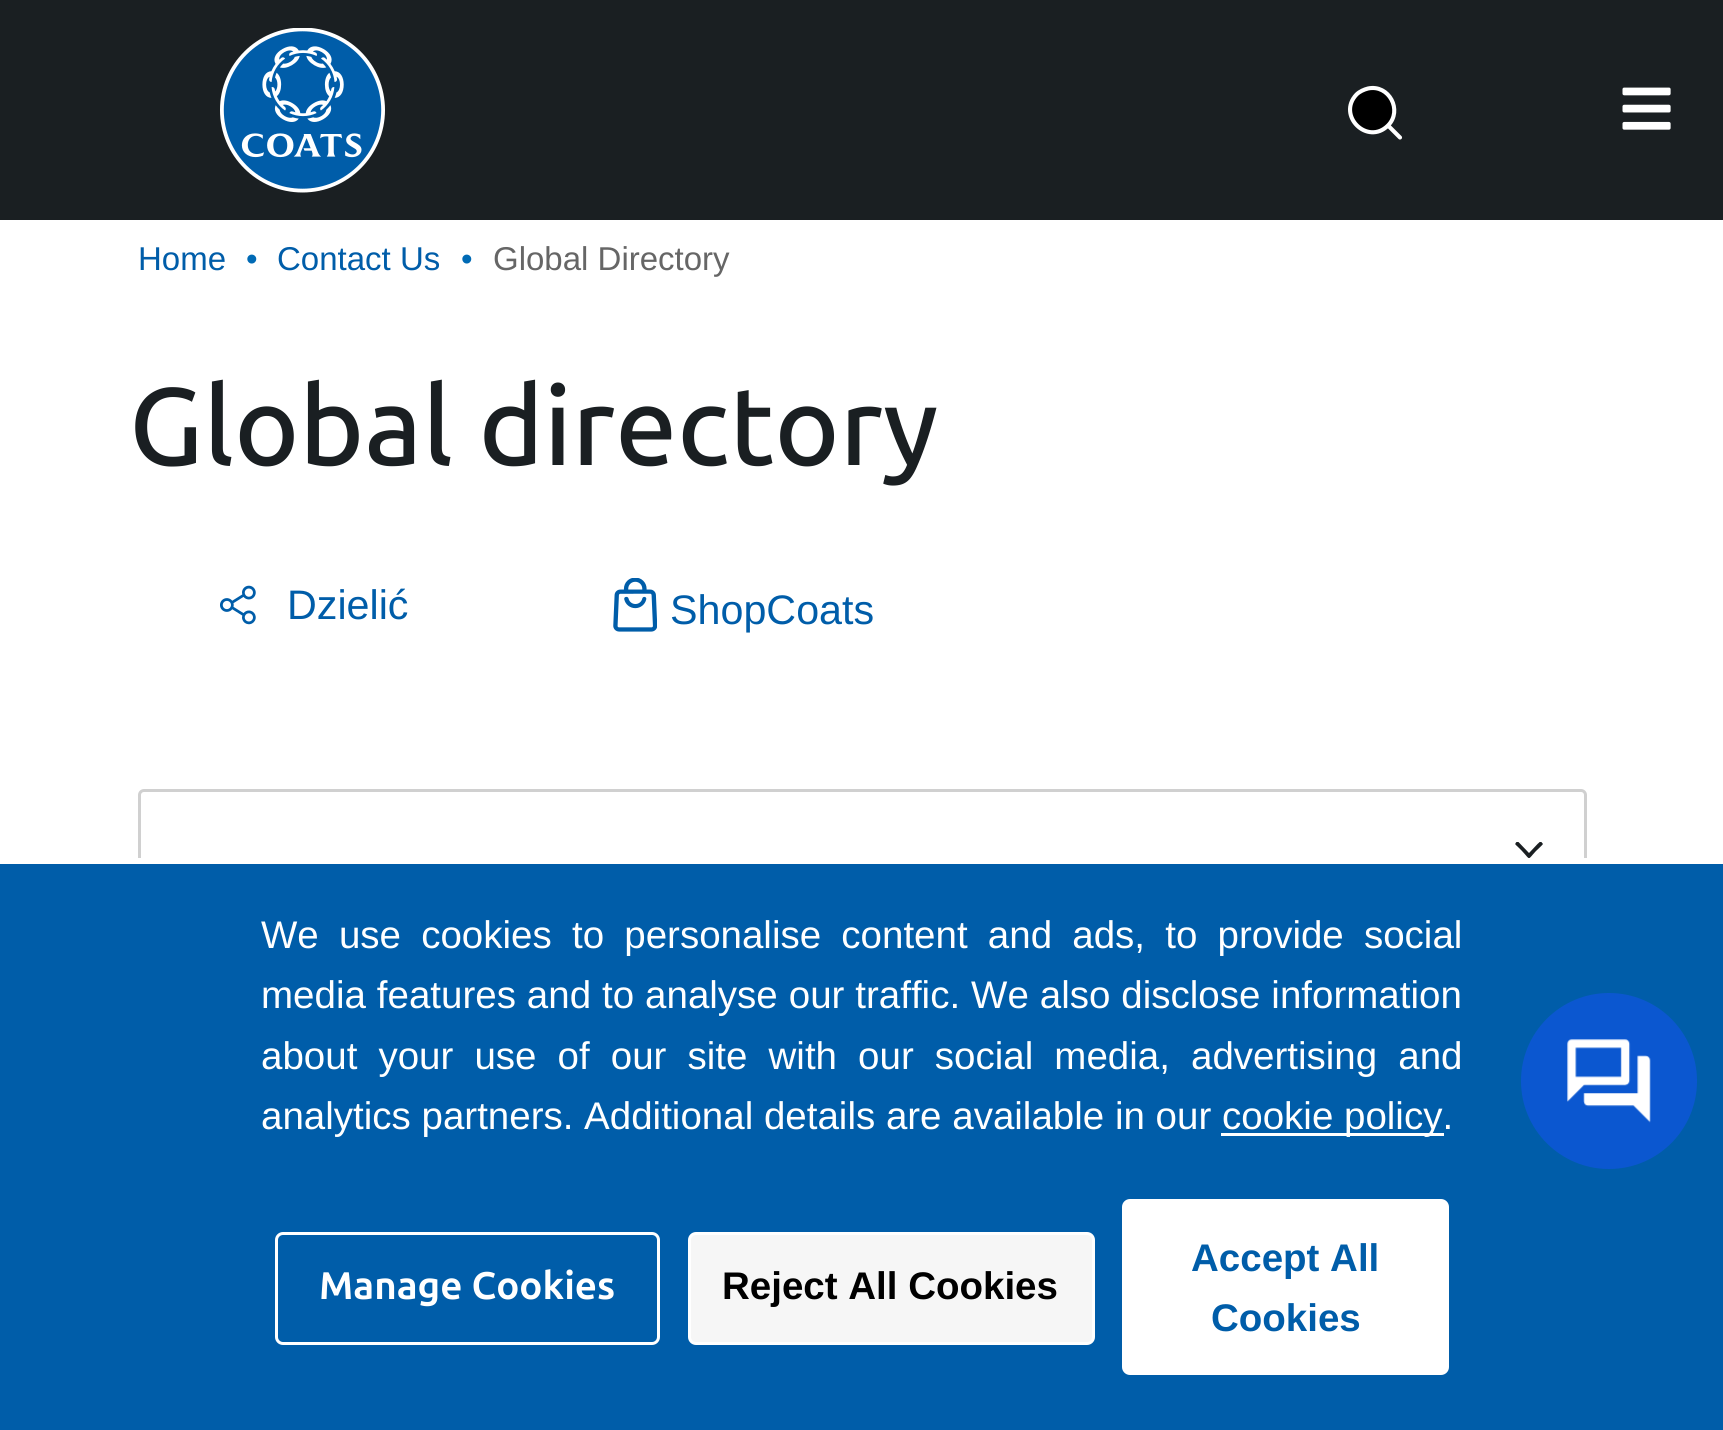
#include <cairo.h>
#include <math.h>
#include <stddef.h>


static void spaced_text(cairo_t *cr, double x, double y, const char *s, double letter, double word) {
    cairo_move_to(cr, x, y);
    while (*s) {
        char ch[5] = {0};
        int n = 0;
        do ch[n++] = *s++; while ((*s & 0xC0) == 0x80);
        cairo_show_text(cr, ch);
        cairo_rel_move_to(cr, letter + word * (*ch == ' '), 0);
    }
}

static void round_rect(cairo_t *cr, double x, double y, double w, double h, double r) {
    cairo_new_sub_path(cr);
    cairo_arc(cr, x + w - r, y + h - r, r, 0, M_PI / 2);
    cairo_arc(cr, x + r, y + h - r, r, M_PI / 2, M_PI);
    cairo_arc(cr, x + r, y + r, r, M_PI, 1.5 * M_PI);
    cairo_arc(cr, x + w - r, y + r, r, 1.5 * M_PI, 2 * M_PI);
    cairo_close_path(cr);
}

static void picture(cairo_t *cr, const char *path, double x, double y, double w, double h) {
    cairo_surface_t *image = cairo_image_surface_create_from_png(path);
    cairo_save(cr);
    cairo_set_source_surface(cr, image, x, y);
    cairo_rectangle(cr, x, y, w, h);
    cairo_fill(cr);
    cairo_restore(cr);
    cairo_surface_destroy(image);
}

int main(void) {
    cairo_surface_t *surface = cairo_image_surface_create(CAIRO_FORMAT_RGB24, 1723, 1430);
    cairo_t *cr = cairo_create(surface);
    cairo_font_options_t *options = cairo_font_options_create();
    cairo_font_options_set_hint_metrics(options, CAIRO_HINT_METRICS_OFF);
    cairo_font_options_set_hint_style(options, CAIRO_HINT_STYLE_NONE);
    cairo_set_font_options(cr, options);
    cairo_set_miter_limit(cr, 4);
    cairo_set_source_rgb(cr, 1, 1, 1);
    cairo_paint(cr);
    cairo_set_source_rgb(cr, 0.102, 0.122, 0.133);
    cairo_rectangle(cr, 0, 0, 1723, 220);
    cairo_fill(cr);
    picture(cr, "img1.png", 220, 28, 165, 165);
    cairo_set_source_rgb(cr, 0, 0, 0);
    cairo_new_path(cr);
    cairo_move_to(cr, 1400, 138);
    cairo_line_to(cr, 1388, 126);
    cairo_move_to(cr, 1388, 126);
    cairo_curve_to(cr, 1403, 110, 1389, 84, 1368, 88);
    cairo_curve_to(cr, 1364, 89, 1360, 91, 1357, 94);
    cairo_curve_to(cr, 1337, 116, 1368, 146, 1388, 126);
    cairo_close_path(cr);
    cairo_fill(cr);
    cairo_new_path(cr);
    cairo_move_to(cr, 1400, 137.5);
    cairo_line_to(cr, 1388, 125.5);
    cairo_move_to(cr, 1388, 125.5);
    cairo_curve_to(cr, 1403, 110.5, 1389, 84, 1368, 88.5);
    cairo_curve_to(cr, 1364, 89.5, 1359.5, 91.5, 1356.5, 94.5);
    cairo_curve_to(cr, 1336.5, 115.5, 1367.5, 146, 1388, 125.5);
    cairo_close_path(cr);
    cairo_set_source_rgb(cr, 1, 1, 1);
    cairo_set_line_width(cr, 4.1);
    cairo_set_line_cap(cr, CAIRO_LINE_CAP_ROUND);
    cairo_set_line_join(cr, CAIRO_LINE_JOIN_ROUND);
    cairo_stroke(cr);
    picture(cr, "img2.png", 1622, 87, 49, 43);
    cairo_select_font_face(cr, "Liberation Sans", CAIRO_FONT_SLANT_NORMAL, CAIRO_FONT_WEIGHT_NORMAL);
    cairo_set_font_size(cr, 33);
    cairo_set_source_rgb(cr, 0, 0.365, 0.663);
    cairo_move_to(cr, 138, 270);
    cairo_show_text(cr, "Home");
    cairo_set_source_rgb(cr, 0, 0.416, 0.71);
    cairo_move_to(cr, 246, 270);
    cairo_show_text(cr, "•");
    cairo_set_source_rgb(cr, 0, 0.365, 0.663);
    cairo_move_to(cr, 277, 270);
    cairo_show_text(cr, "Contact Us");
    cairo_set_source_rgb(cr, 0, 0.416, 0.71);
    cairo_move_to(cr, 461, 270);
    cairo_show_text(cr, "•");
    cairo_set_source_rgb(cr, 0.4, 0.4, 0.4);
    cairo_move_to(cr, 493, 270);
    cairo_show_text(cr, "Global Directory");
    cairo_select_font_face(cr, "Ubuntu Medium", CAIRO_FONT_SLANT_NORMAL, CAIRO_FONT_WEIGHT_NORMAL);
    cairo_set_font_size(cr, 110);
    cairo_set_source_rgb(cr, 0.102, 0.122, 0.133);
    cairo_move_to(cr, 129, 465);
    cairo_show_text(cr, "Global directory");
    picture(cr, "img3.png", 220, 585, 36, 40);
    cairo_select_font_face(cr, "Liberation Sans", CAIRO_FONT_SLANT_NORMAL, CAIRO_FONT_WEIGHT_NORMAL);
    cairo_set_font_size(cr, 41.25);
    cairo_set_source_rgb(cr, 0, 0.365, 0.663);
    cairo_move_to(cr, 287, 619);
    cairo_show_text(cr, "Dzielić");
    picture(cr, "img4.png", 613, 578, 44, 54);
    cairo_move_to(cr, 670, 624);
    cairo_show_text(cr, "ShopCoats");
    round_rect(cr, 139.5, 790.5, 1446, 121, 4.5);
    cairo_set_source_rgb(cr, 0.816, 0.816, 0.816);
    cairo_set_line_width(cr, 3);
    cairo_set_line_cap(cr, CAIRO_LINE_CAP_BUTT);
    cairo_set_line_join(cr, CAIRO_LINE_JOIN_MITER);
    cairo_stroke(cr);
    cairo_save(cr);
    cairo_rectangle(cr, 1515, 842, 28, 16);
    cairo_clip(cr);
    cairo_set_source_rgb(cr, 0.102, 0.122, 0.133);
    cairo_set_fill_rule(cr, CAIRO_FILL_RULE_EVEN_ODD);
    cairo_new_path(cr);
    cairo_move_to(cr, 1543, 844);
    cairo_line_to(cr, 1541, 841.5);
    cairo_curve_to(cr, 1540, 841, 1538.5, 843.5, 1538, 843.5);
    cairo_line_to(cr, 1529, 853);
    cairo_line_to(cr, 1518, 841.5);
    cairo_curve_to(cr, 1517.5, 841, 1516.5, 842, 1516, 842.5);
    cairo_curve_to(cr, 1514.5, 844.5, 1515.5, 844.5, 1517.5, 846.5);
    cairo_line_to(cr, 1522, 851);
    cairo_curve_to(cr, 1531, 860.5, 1527, 860.5, 1536, 851);
    cairo_curve_to(cr, 1537, 850, 1542.5, 845, 1543, 844);
    cairo_close_path(cr);
    cairo_fill(cr);
    cairo_restore(cr);
    cairo_set_source_rgb(cr, 0, 0.365, 0.663);
    cairo_rectangle(cr, 0, 864, 1723, 566);
    cairo_fill(cr);
    cairo_set_source_rgb(cr, 1, 1, 1);
    cairo_rectangle(cr, 138, 858, 1449, 6);
    cairo_fill(cr);
    cairo_set_font_size(cr, 38.5);
    spaced_text(cr, 261, 948, "We use cookies to personalise content and ads, to provide social", 0, 9.5);
    spaced_text(cr, 261, 1008, "media features and to analyse our traffic. We also disclose information", 0, 0.25);
    spaced_text(cr, 261, 1069, "about your use of our site with our social media, advertising and", 0, 10.4);
    cairo_move_to(cr, 261, 1129);
    cairo_show_text(cr, "analytics partners. Additional details are available in our");
    cairo_rectangle(cr, 1221, 1133, 223, 3);
    cairo_fill(cr);
    cairo_move_to(cr, 1222, 1129);
    cairo_show_text(cr, "cookie policy.");
    round_rect(cr, 276.5, 1233.5, 382, 110, 6.5);
    cairo_stroke(cr);
    cairo_select_font_face(cr, "Ubuntu", CAIRO_FONT_SLANT_NORMAL, CAIRO_FONT_WEIGHT_BOLD);
    cairo_move_to(cr, 319, 1299);
    cairo_show_text(cr, "Manage Cookies");
    cairo_set_source_rgb(cr, 0.961, 0.961, 0.961);
    round_rect(cr, 689.5, 1233.5, 404, 110, 6.5);
    cairo_fill_preserve(cr);
    cairo_set_source_rgb(cr, 1, 1, 1);
    cairo_stroke(cr);
    cairo_select_font_face(cr, "Liberation Sans", CAIRO_FONT_SLANT_NORMAL, CAIRO_FONT_WEIGHT_BOLD);
    cairo_set_source_rgb(cr, 0, 0, 0);
    cairo_move_to(cr, 722, 1299);
    cairo_show_text(cr, "Reject All Cookies");
    cairo_set_source_rgb(cr, 1, 1, 1);
    round_rect(cr, 1123.5, 1200.5, 324, 173, 6.5);
    cairo_fill_preserve(cr);
    cairo_stroke(cr);
    cairo_set_source_rgb(cr, 0, 0.365, 0.663);
    cairo_move_to(cr, 1191, 1271);
    cairo_show_text(cr, "Accept All");
    cairo_move_to(cr, 1211, 1331);
    cairo_show_text(cr, "Cookies");
    cairo_set_source_rgb(cr, 0.043, 0.341, 0.816);
    cairo_new_path(cr);
    cairo_arc(cr, 1609, 1081, 88, 0, 2 * M_PI);
    cairo_fill(cr);
    picture(cr, "img5.png", 1567, 1039, 84, 84);
    cairo_surface_write_to_png(surface, "page.png");
    cairo_font_options_destroy(options);
    cairo_destroy(cr);
    cairo_surface_destroy(surface);
    return 0;
}
